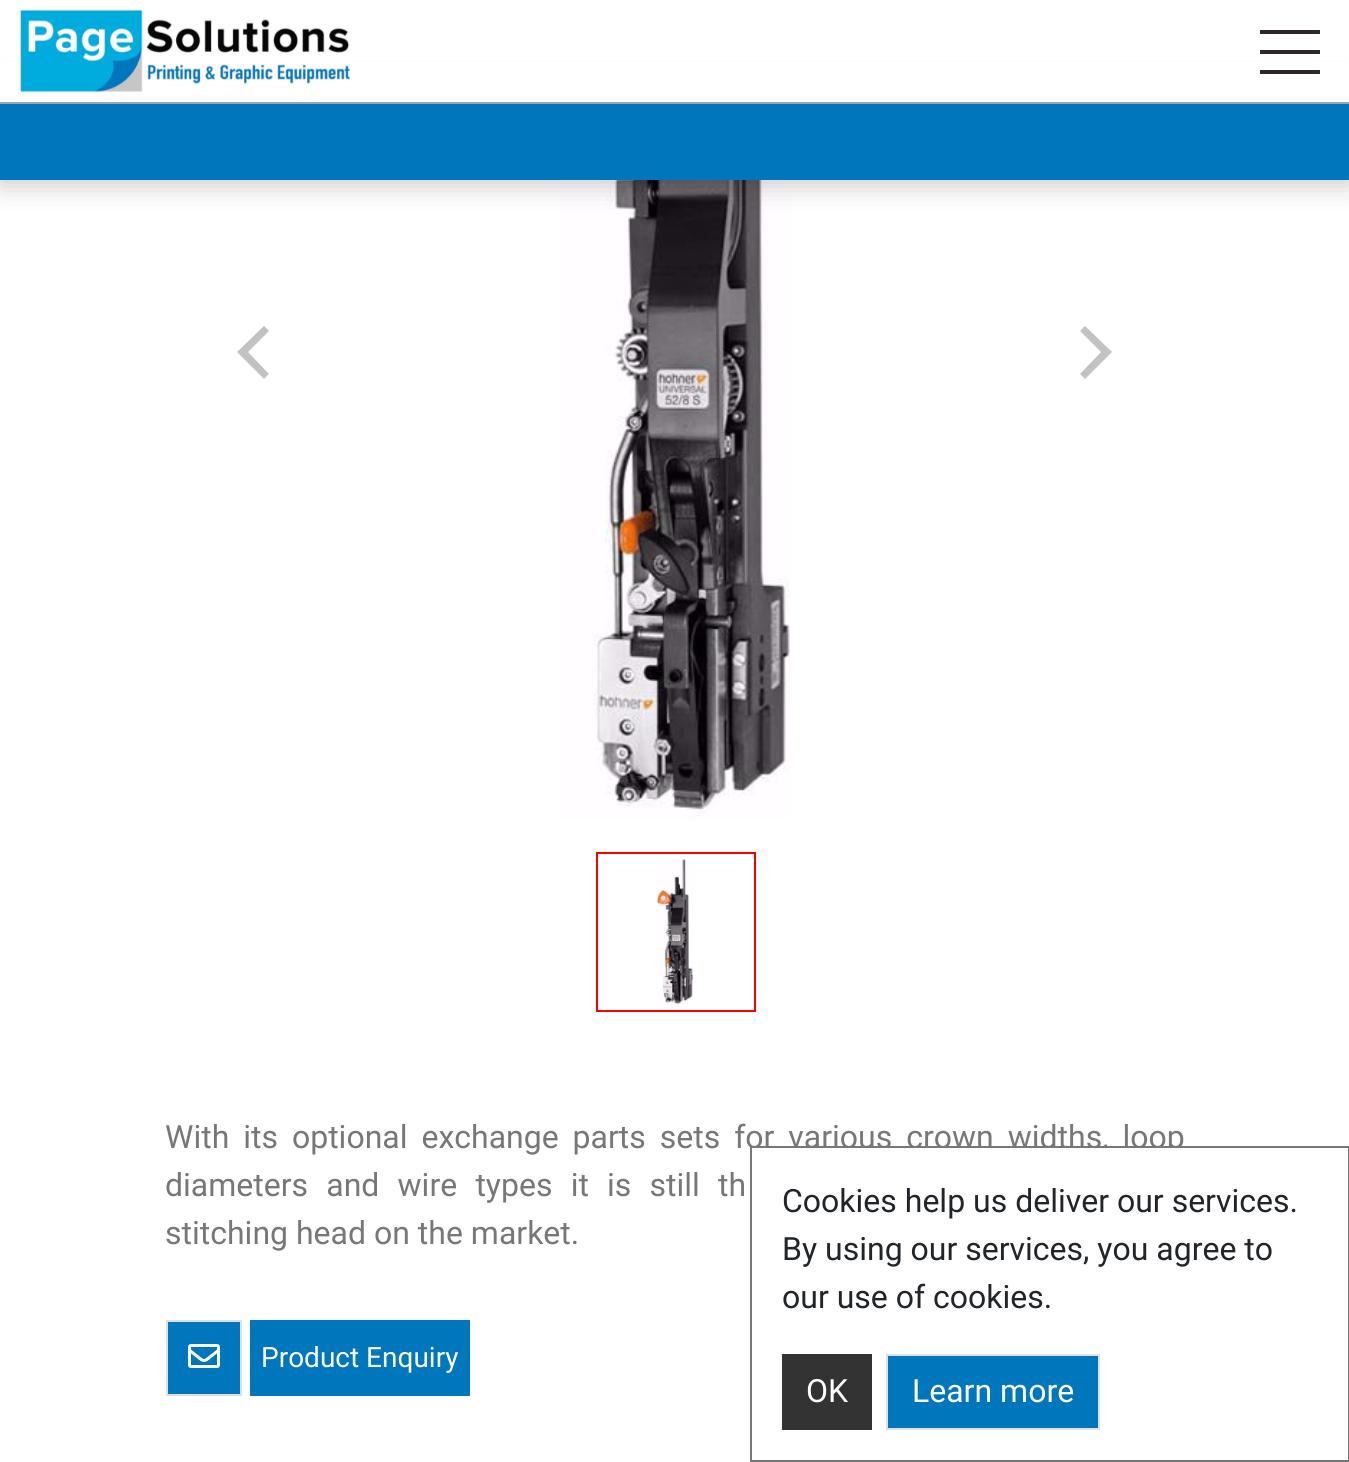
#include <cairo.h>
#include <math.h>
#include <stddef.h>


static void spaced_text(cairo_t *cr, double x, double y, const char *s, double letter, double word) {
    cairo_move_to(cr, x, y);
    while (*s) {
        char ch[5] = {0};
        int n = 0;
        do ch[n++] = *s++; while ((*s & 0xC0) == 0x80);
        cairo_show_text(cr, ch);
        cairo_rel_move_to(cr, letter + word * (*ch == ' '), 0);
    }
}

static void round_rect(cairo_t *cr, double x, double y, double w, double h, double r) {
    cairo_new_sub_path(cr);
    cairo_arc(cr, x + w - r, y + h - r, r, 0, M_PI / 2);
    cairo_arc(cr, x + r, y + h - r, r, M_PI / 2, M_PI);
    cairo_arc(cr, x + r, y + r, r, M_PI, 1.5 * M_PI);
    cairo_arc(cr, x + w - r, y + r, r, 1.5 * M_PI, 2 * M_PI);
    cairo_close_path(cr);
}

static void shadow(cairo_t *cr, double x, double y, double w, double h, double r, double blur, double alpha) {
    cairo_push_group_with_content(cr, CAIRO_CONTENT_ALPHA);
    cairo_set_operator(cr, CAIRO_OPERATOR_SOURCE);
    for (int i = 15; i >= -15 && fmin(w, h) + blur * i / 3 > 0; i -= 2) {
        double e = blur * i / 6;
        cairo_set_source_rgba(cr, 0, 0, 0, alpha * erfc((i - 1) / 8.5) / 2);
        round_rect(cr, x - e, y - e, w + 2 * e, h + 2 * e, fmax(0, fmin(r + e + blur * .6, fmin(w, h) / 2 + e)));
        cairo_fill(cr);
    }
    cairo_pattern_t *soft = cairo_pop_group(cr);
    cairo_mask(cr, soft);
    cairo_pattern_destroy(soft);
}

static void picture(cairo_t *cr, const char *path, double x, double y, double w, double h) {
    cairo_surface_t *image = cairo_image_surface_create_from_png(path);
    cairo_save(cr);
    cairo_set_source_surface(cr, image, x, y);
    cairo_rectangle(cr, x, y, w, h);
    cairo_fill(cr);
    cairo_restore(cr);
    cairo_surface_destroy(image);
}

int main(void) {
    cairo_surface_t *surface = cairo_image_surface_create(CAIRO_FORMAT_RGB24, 1349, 1462);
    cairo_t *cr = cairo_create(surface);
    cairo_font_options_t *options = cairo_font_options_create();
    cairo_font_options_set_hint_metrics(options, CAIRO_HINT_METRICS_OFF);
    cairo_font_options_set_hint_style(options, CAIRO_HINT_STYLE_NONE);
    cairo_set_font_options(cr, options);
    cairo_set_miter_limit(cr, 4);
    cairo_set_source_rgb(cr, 1, 1, 1);
    cairo_paint(cr);
    picture(cr, "img2.png", 558, 180, 232, 639);
    cairo_set_source_rgb(cr, 0, 0, 0);
    shadow(cr, 0, 84, 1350, 102, 0, 13, 0.2);
    cairo_set_source_rgb(cr, 0, 0.463, 0.737);
    cairo_rectangle(cr, 0, 104, 1349, 76);
    cairo_fill(cr);
    cairo_set_source_rgb(cr, 1, 1, 1);
    cairo_rectangle(cr, 0, 63, 1349, 39);
    cairo_fill(cr);
    cairo_set_source_rgb(cr, 0.616, 0.651, 0.698);
    cairo_rectangle(cr, 0, 102, 1349, 2);
    cairo_fill(cr);
    picture(cr, "img1.png", 20, 9, 331, 84);
    cairo_set_source_rgb(cr, 0.184, 0.153, 0.153);
    cairo_rectangle(cr, 1260, 30, 60, 4);
    cairo_fill(cr);
    cairo_rectangle(cr, 1260, 50, 60, 4);
    cairo_fill(cr);
    cairo_rectangle(cr, 1260, 70, 60, 4);
    cairo_fill(cr);
    cairo_set_source_rgb(cr, 0.761, 0.761, 0.761);
    cairo_new_path(cr);
    cairo_move_to(cr, 237, 352);
    cairo_line_to(cr, 264, 379);
    cairo_line_to(cr, 269, 374);
    cairo_line_to(cr, 248, 352);
    cairo_line_to(cr, 269, 331);
    cairo_line_to(cr, 264, 326);
    cairo_close_path(cr);
    cairo_fill(cr);
    cairo_new_path(cr);
    cairo_move_to(cr, 1112, 352);
    cairo_line_to(cr, 1085, 326);
    cairo_line_to(cr, 1080, 331);
    cairo_line_to(cr, 1101, 352);
    cairo_line_to(cr, 1080, 374);
    cairo_line_to(cr, 1085, 379);
    cairo_close_path(cr);
    cairo_fill(cr);
    cairo_rectangle(cr, 597, 853, 158, 158);
    cairo_set_source_rgb(cr, 1, 0, 0);
    cairo_stroke(cr);
    picture(cr, "img3.png", 657, 859, 37, 146);
    cairo_select_font_face(cr, "Roboto", CAIRO_FONT_SLANT_NORMAL, CAIRO_FONT_WEIGHT_NORMAL);
    cairo_set_font_size(cr, 32);
    cairo_set_source_rgb(cr, 0.467, 0.467, 0.467);
    spaced_text(cr, 165, 1148, "With its optional exchange parts sets for various crown widths, loop", 0, 6);
    spaced_text(cr, 165, 1196, "diameters and wire types it is still th", 0, 10.25);
    cairo_move_to(cr, 165, 1244);
    cairo_show_text(cr, "stitching head on the market.");
    cairo_set_source_rgb(cr, 0, 0.463, 0.737);
    cairo_rectangle(cr, 167, 1321, 74, 74);
    cairo_fill_preserve(cr);
    cairo_set_source_rgb(cr, 0.878, 0.878, 0.878);
    cairo_stroke(cr);
    picture(cr, "img4.png", 188, 1344, 32, 24);
    cairo_set_source_rgb(cr, 0, 0.463, 0.737);
    cairo_rectangle(cr, 250, 1320, 220, 76);
    cairo_fill(cr);
    cairo_set_font_size(cr, 28);
    cairo_set_source_rgb(cr, 1, 1, 1);
    cairo_move_to(cr, 261, 1367);
    cairo_show_text(cr, "Product Enquiry");
    cairo_rectangle(cr, 752, 1148, 427, 7);
    cairo_fill(cr);
    cairo_rectangle(cr, 751, 1147, 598, 314);
    cairo_set_source_rgb(cr, 0.467, 0.467, 0.467);
    cairo_stroke(cr);
    cairo_set_font_size(cr, 32);
    cairo_set_source_rgb(cr, 0.129, 0.145, 0.161);
    cairo_move_to(cr, 782, 1212);
    cairo_show_text(cr, "Cookies help us deliver our services.");
    cairo_move_to(cr, 782, 1260);
    cairo_show_text(cr, "By using our services, you agree to");
    cairo_move_to(cr, 782, 1308);
    cairo_show_text(cr, "our use of cookies.");
    cairo_set_source_rgb(cr, 0.2, 0.2, 0.2);
    cairo_rectangle(cr, 782, 1354, 90, 76);
    cairo_fill(cr);
    cairo_set_source_rgb(cr, 1, 1, 1);
    cairo_move_to(cr, 806, 1402);
    cairo_show_text(cr, "OK");
    cairo_set_source_rgb(cr, 0, 0.463, 0.737);
    cairo_rectangle(cr, 887, 1355, 212, 74);
    cairo_fill_preserve(cr);
    cairo_set_source_rgb(cr, 0.878, 0.878, 0.878);
    cairo_stroke(cr);
    cairo_set_source_rgb(cr, 1, 1, 1);
    cairo_move_to(cr, 912, 1402);
    cairo_show_text(cr, "Learn more");
    cairo_surface_write_to_png(surface, "page.png");
    cairo_font_options_destroy(options);
    cairo_destroy(cr);
    cairo_surface_destroy(surface);
    return 0;
}
